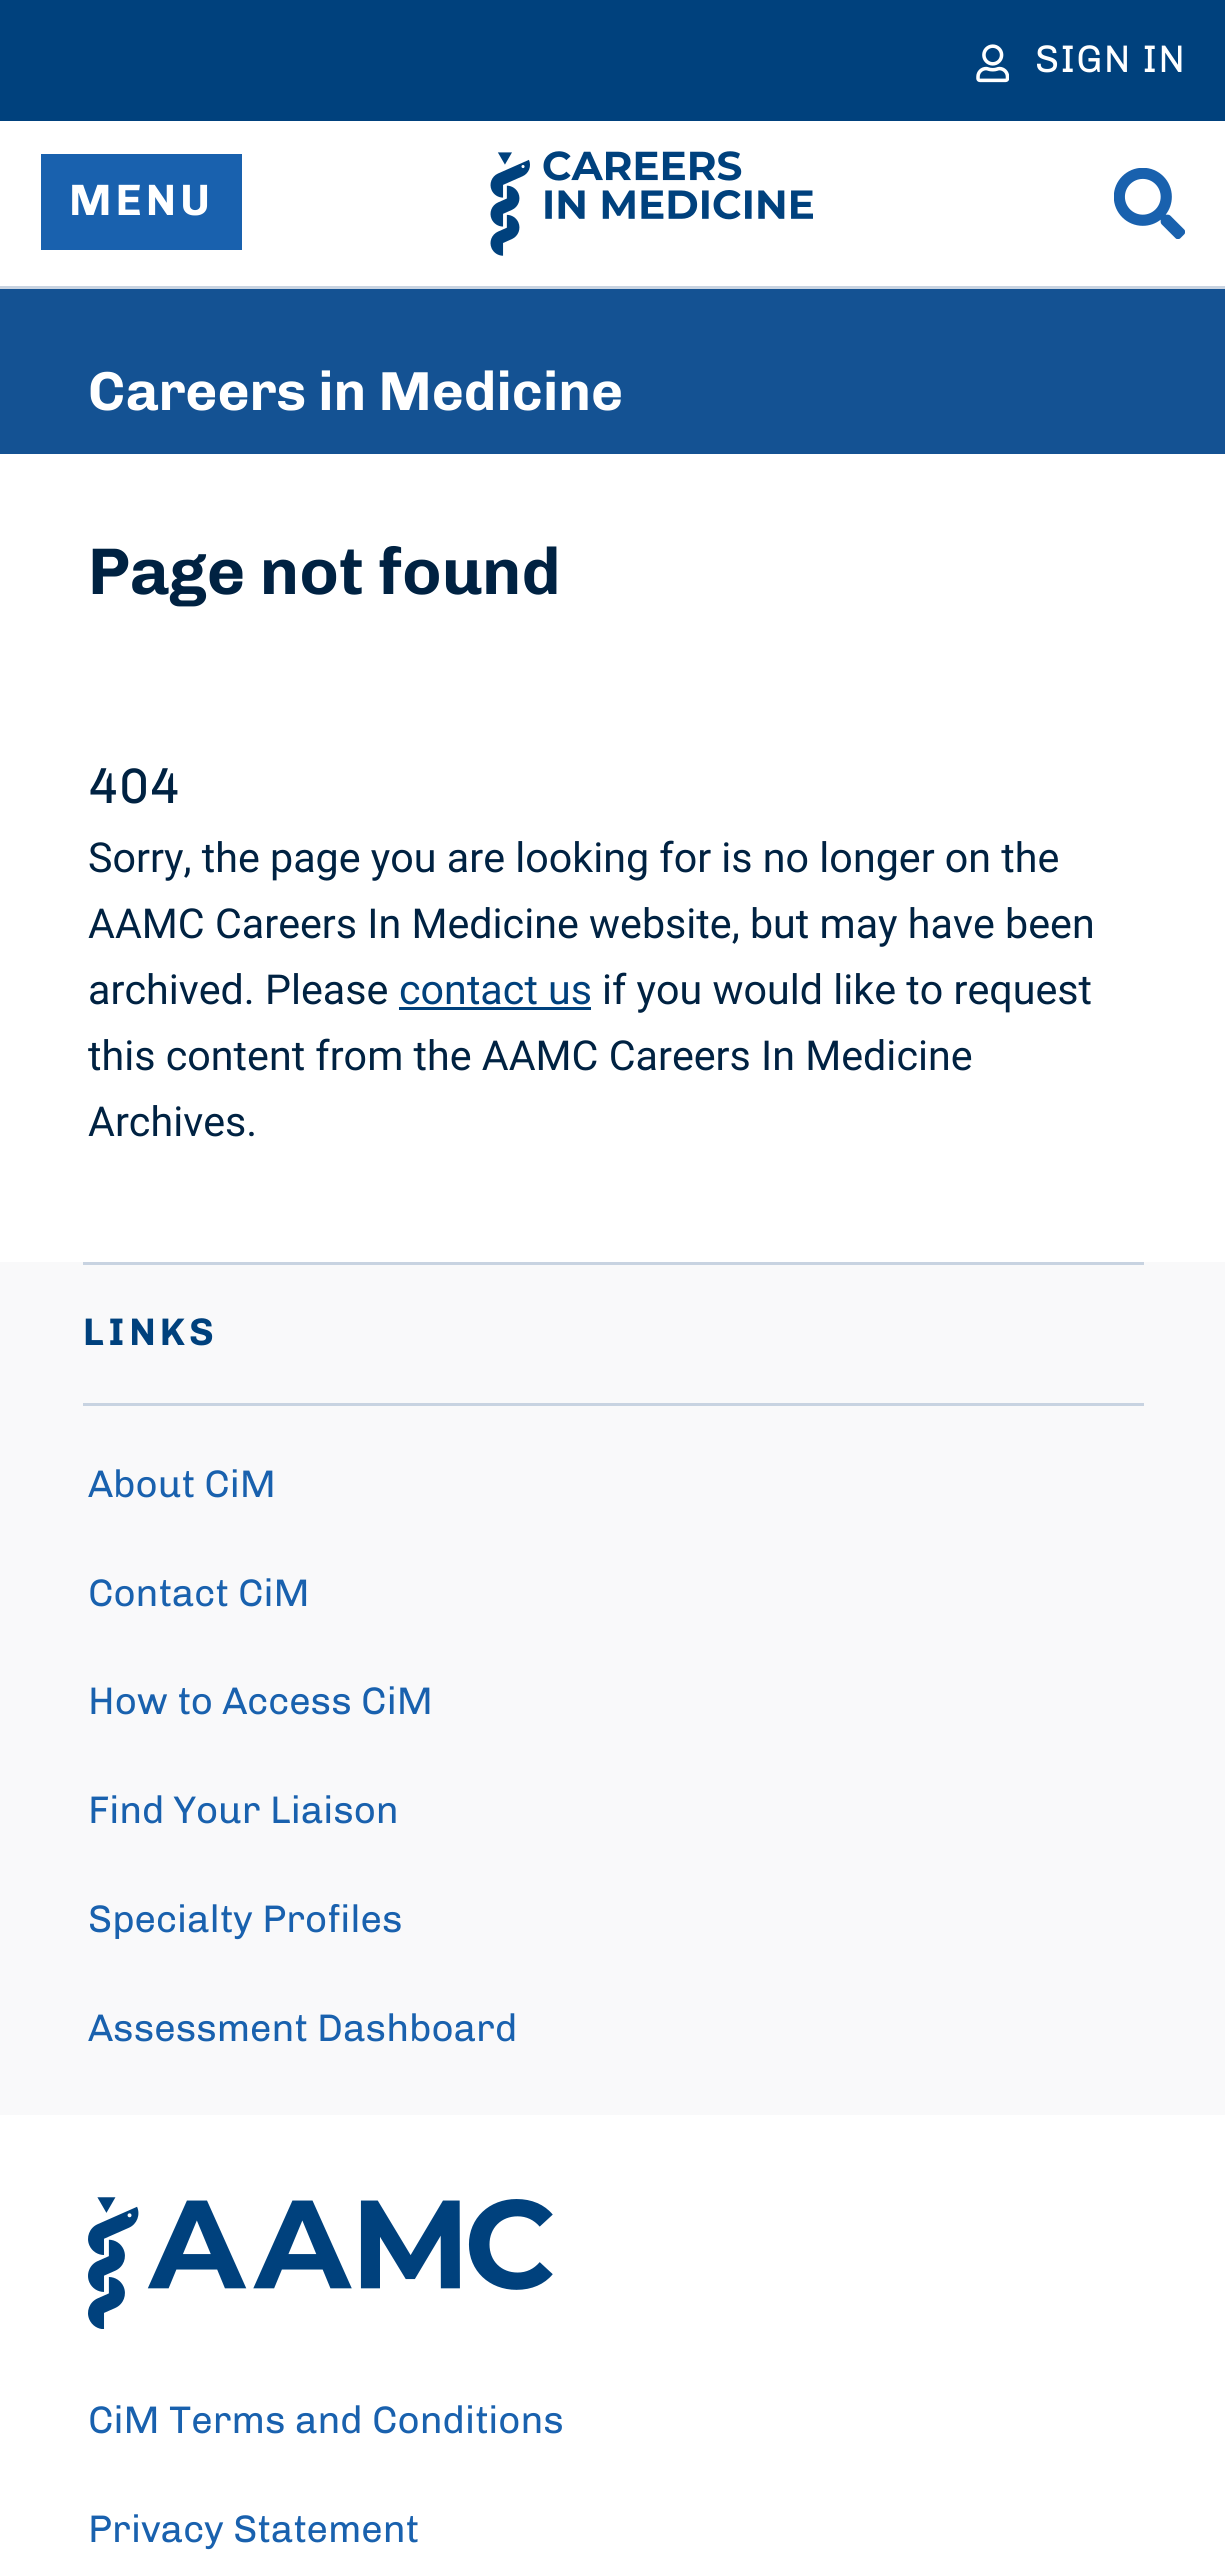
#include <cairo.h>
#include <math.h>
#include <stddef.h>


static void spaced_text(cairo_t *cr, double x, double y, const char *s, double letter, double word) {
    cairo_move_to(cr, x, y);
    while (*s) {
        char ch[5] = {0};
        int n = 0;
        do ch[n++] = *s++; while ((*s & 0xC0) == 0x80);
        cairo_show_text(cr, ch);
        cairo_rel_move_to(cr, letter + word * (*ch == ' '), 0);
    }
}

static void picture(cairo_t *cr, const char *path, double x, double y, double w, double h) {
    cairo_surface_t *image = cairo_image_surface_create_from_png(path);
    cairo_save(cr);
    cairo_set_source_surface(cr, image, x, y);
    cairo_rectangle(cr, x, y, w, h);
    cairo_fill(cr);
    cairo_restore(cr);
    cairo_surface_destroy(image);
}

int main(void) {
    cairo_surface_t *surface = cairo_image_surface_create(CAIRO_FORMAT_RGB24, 1225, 2574);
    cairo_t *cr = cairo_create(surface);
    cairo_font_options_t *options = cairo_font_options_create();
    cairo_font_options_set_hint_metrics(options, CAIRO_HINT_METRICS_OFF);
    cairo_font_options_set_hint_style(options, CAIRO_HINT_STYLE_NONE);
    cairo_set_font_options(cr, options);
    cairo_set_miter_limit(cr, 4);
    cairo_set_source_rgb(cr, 1, 1, 1);
    cairo_paint(cr);
    cairo_set_source_rgb(cr, 0, 0.255, 0.49);
    cairo_rectangle(cr, 0, 0, 1225, 121);
    cairo_fill(cr);
    picture(cr, "img1.png", 976, 44, 33, 39);
    cairo_select_font_face(cr, "Chivo", CAIRO_FONT_SLANT_NORMAL, CAIRO_FONT_WEIGHT_NORMAL);
    cairo_set_font_size(cr, 38.5);
    cairo_set_source_rgb(cr, 1, 1, 1);
    spaced_text(cr, 1035, 72, "SIGN IN", 1.5, 0);
    cairo_set_source_rgb(cr, 0.784, 0.827, 0.882);
    cairo_rectangle(cr, 0, 286, 1225, 3);
    cairo_fill(cr);
    cairo_set_source_rgb(cr, 0.098, 0.38, 0.682);
    cairo_rectangle(cr, 41, 154, 201, 96);
    cairo_fill(cr);
    cairo_select_font_face(cr, "Chivo", CAIRO_FONT_SLANT_NORMAL, CAIRO_FONT_WEIGHT_BOLD);
    cairo_set_font_size(cr, 44);
    cairo_set_source_rgb(cr, 1, 1, 1);
    spaced_text(cr, 69, 215, "MENU", 4, 0);
    picture(cr, "img2.png", 490, 151, 323, 105);
    picture(cr, "img3.png", 1114, 168, 71, 71);
    cairo_set_source_rgb(cr, 0.082, 0.322, 0.576);
    cairo_rectangle(cr, 0, 289, 1225, 165);
    cairo_fill(cr);
    cairo_set_font_size(cr, 55);
    cairo_set_source_rgb(cr, 1, 1, 1);
    cairo_move_to(cr, 88, 410);
    cairo_show_text(cr, "Careers in Medicine");
    cairo_set_font_size(cr, 66);
    cairo_set_source_rgb(cr, 0, 0.133, 0.259);
    cairo_move_to(cr, 88, 594);
    cairo_show_text(cr, "Page not found");
    cairo_select_font_face(cr, "Chivo", CAIRO_FONT_SLANT_NORMAL, CAIRO_FONT_WEIGHT_NORMAL);
    cairo_set_font_size(cr, 50);
    cairo_move_to(cr, 88, 803);
    cairo_show_text(cr, "404");
    cairo_select_font_face(cr, "Roboto", CAIRO_FONT_SLANT_NORMAL, CAIRO_FONT_WEIGHT_NORMAL);
    cairo_set_font_size(cr, 41.25);
    cairo_move_to(cr, 88, 872);
    cairo_show_text(cr, "Sorry, the page you are looking for is no longer on the");
    cairo_move_to(cr, 88, 938);
    cairo_show_text(cr, "AAMC Careers In Medicine website, but may have been");
    cairo_move_to(cr, 88, 1004);
    cairo_show_text(cr, "archived. Please");
    cairo_set_source_rgb(cr, 0, 0.255, 0.49);
    cairo_move_to(cr, 399, 1004);
    cairo_show_text(cr, "contact us");
    cairo_rectangle(cr, 399, 1007, 192, 3);
    cairo_fill(cr);
    cairo_set_source_rgb(cr, 0, 0.133, 0.259);
    cairo_move_to(cr, 602, 1004);
    cairo_show_text(cr, "if you would like to request");
    cairo_move_to(cr, 88, 1070);
    cairo_show_text(cr, "this content from the AAMC Careers In Medicine");
    cairo_move_to(cr, 88, 1136);
    cairo_show_text(cr, "Archives.");
    cairo_set_source_rgb(cr, 0.973, 0.976, 0.98);
    cairo_rectangle(cr, 0, 1262, 1225, 853);
    cairo_fill(cr);
    cairo_set_source_rgb(cr, 0.784, 0.827, 0.882);
    cairo_rectangle(cr, 83, 1262, 1061, 3);
    cairo_fill(cr);
    cairo_rectangle(cr, 83, 1403, 1061, 3);
    cairo_fill(cr);
    cairo_select_font_face(cr, "Chivo", CAIRO_FONT_SLANT_NORMAL, CAIRO_FONT_WEIGHT_BOLD);
    cairo_set_font_size(cr, 38.5);
    cairo_set_source_rgb(cr, 0, 0.255, 0.49);
    spaced_text(cr, 83, 1345, "LINKS", 4, 0);
    cairo_select_font_face(cr, "Chivo", CAIRO_FONT_SLANT_NORMAL, CAIRO_FONT_WEIGHT_NORMAL);
    cairo_set_source_rgb(cr, 0.098, 0.38, 0.682);
    cairo_move_to(cr, 88, 1497);
    cairo_show_text(cr, "About CiM");
    cairo_move_to(cr, 88, 1606);
    cairo_show_text(cr, "Contact CiM");
    cairo_move_to(cr, 88, 1714);
    cairo_show_text(cr, "How to Access CiM");
    cairo_move_to(cr, 88, 1823);
    cairo_show_text(cr, "Find Your Liaison");
    cairo_move_to(cr, 88, 1932);
    cairo_show_text(cr, "Specialty Profiles");
    cairo_move_to(cr, 88, 2041);
    cairo_show_text(cr, "Assessment Dashboard");
    picture(cr, "img4.png", 88, 2197, 465, 132);
    cairo_move_to(cr, 88, 2433);
    cairo_show_text(cr, "CiM Terms and Conditions");
    cairo_move_to(cr, 88, 2542);
    cairo_show_text(cr, "Privacy Statement");
    cairo_surface_write_to_png(surface, "page.png");
    cairo_font_options_destroy(options);
    cairo_destroy(cr);
    cairo_surface_destroy(surface);
    return 0;
}
